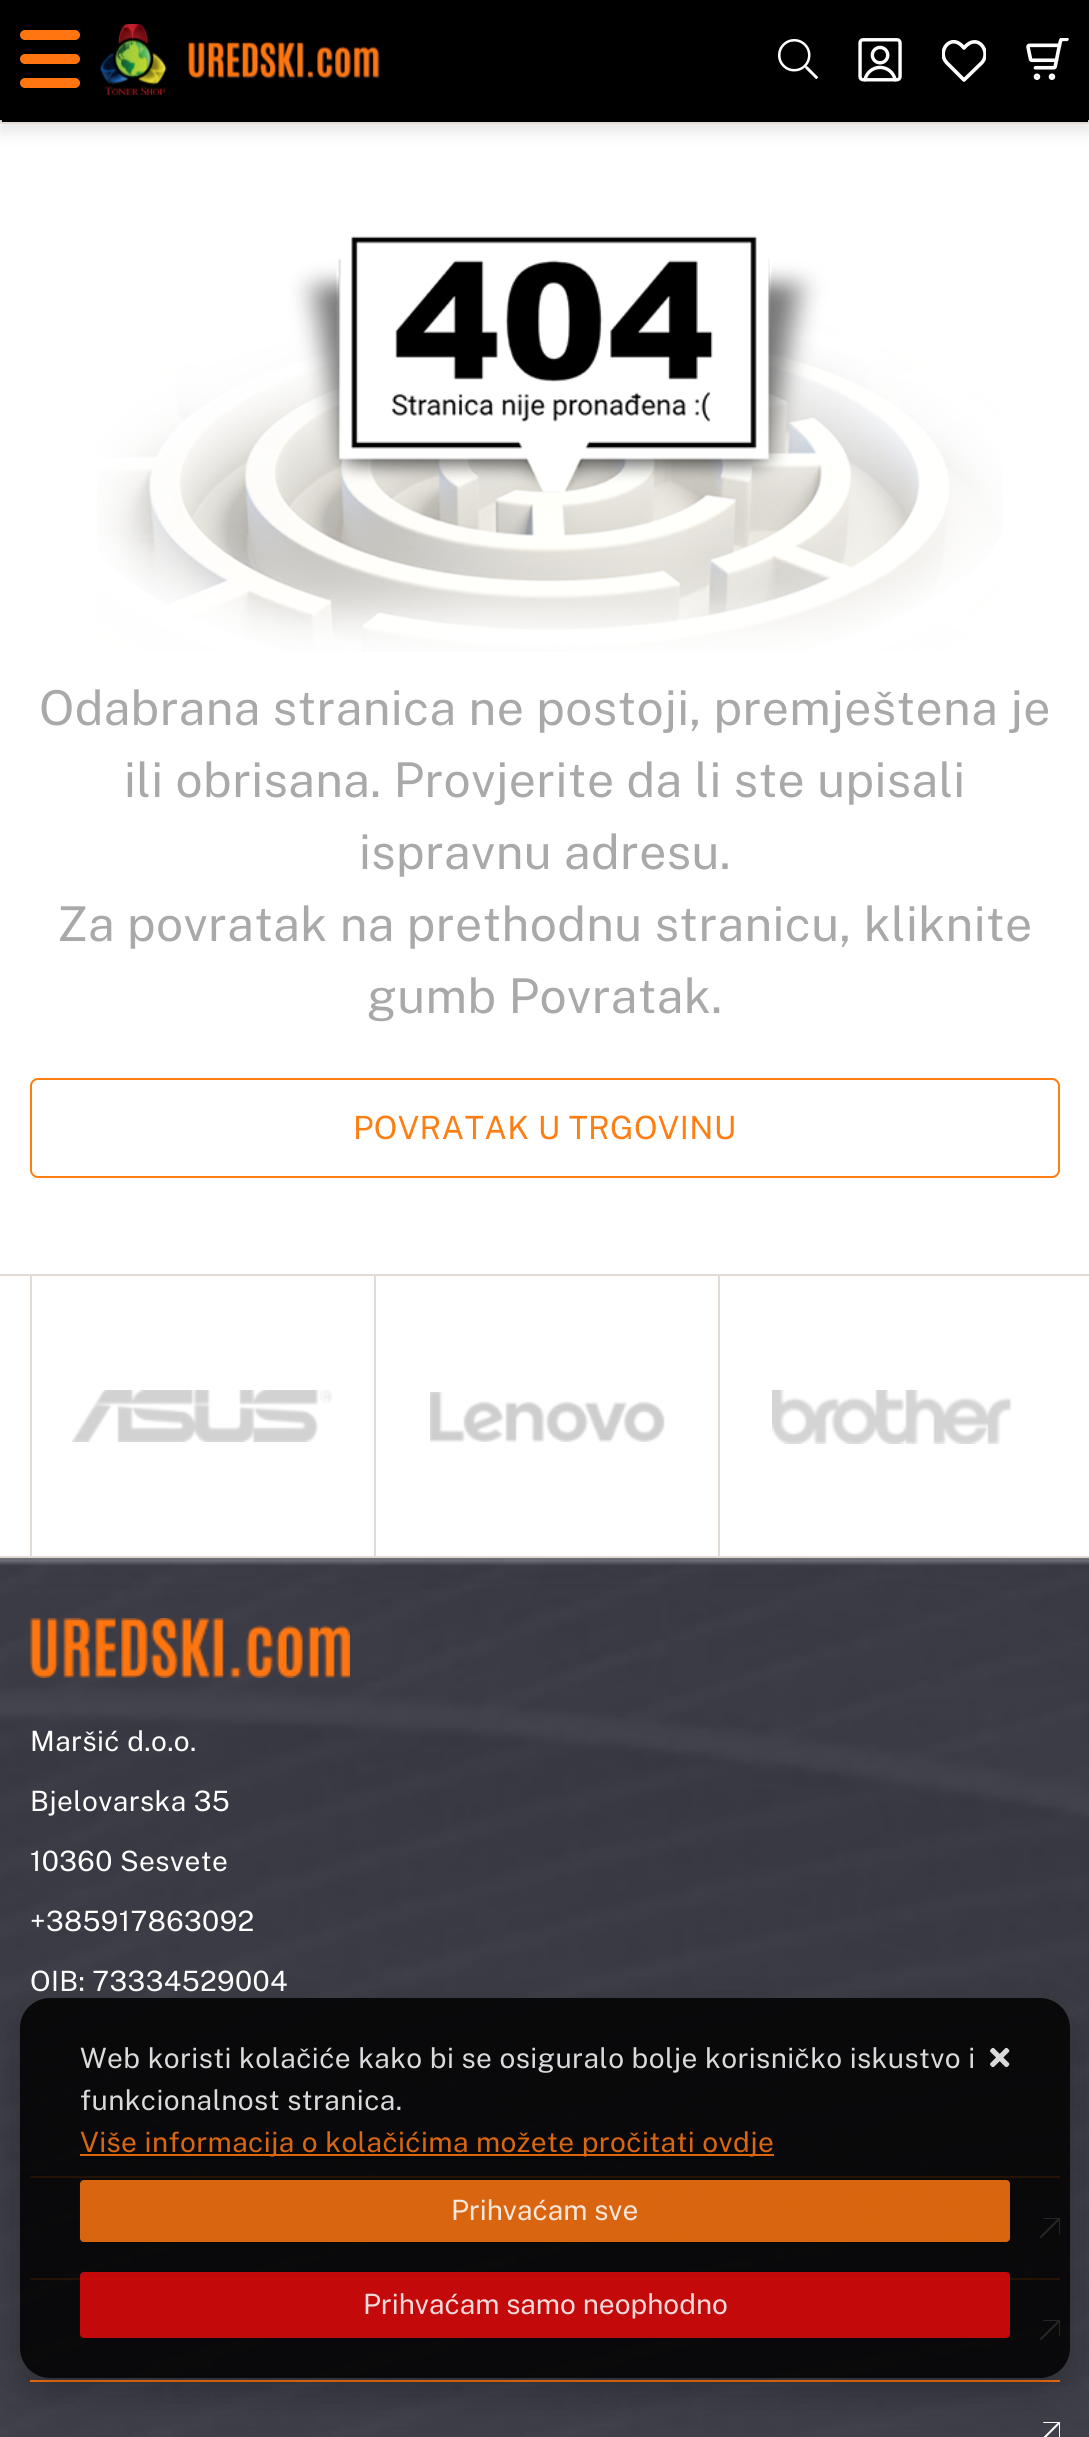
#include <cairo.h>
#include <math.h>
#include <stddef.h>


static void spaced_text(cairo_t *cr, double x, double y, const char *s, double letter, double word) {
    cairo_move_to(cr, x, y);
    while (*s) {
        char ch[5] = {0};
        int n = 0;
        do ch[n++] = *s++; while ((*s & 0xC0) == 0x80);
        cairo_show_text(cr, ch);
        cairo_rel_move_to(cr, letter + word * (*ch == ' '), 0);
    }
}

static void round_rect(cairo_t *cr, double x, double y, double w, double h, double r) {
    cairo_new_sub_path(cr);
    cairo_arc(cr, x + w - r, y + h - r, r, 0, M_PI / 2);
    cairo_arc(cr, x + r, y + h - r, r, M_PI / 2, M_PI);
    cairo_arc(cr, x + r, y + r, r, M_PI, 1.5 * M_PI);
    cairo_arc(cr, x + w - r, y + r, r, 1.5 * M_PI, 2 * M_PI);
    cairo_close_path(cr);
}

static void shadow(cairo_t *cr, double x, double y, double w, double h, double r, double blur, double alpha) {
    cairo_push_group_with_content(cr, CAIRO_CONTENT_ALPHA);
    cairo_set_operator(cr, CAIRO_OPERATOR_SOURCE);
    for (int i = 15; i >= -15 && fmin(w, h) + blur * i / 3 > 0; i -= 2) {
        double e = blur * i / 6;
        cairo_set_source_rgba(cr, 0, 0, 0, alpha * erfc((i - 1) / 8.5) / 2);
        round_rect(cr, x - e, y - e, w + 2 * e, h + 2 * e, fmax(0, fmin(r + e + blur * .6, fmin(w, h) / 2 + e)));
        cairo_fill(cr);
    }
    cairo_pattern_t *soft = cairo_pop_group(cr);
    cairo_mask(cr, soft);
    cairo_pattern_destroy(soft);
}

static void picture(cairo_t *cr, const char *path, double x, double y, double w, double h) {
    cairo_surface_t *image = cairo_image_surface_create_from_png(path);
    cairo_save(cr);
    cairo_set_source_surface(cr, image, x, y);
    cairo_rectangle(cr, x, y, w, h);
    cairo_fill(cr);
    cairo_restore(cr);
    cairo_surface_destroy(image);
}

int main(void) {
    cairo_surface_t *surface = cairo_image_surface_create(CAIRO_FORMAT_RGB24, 1089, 2437);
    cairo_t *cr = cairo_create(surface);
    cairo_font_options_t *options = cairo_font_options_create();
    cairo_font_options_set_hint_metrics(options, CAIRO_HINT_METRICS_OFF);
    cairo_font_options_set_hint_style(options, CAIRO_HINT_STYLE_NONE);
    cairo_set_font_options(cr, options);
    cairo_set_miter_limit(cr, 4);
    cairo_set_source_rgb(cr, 1, 1, 1);
    cairo_paint(cr);
    cairo_set_source_rgb(cr, 0, 0, 0);
    shadow(cr, 0, 8, 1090, 124, 0, 8, 0.1);
    cairo_set_source_rgb(cr, 0, 0, 0);
    cairo_rectangle(cr, 2, 120, 1086, 2);
    cairo_fill(cr);
    cairo_rectangle(cr, 1, 1, 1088, 122);
    cairo_set_source_rgb(cr, 0.886, 0.855, 0.831);
    cairo_stroke(cr);
    cairo_set_source_rgb(cr, 0, 0, 0);
    shadow(cr, 0, 0, 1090, 120, 0, 1, 0.3);
    cairo_set_source_rgb(cr, 0, 0, 0);
    cairo_rectangle(cr, 0, 0, 1089, 120);
    cairo_fill(cr);
    cairo_set_source_rgb(cr, 1, 0.463, 0.067);
    round_rect(cr, 20, 30, 60, 10, 5);
    cairo_fill(cr);
    round_rect(cr, 20, 54, 60, 10, 5);
    cairo_fill(cr);
    round_rect(cr, 20, 78, 60, 10, 5);
    cairo_fill(cr);
    picture(cr, "img1.png", 100, 24, 280, 71);
    picture(cr, "img2.png", 778, 39, 40, 40);
    picture(cr, "img3.png", 858, 38, 44, 44);
    cairo_save(cr);
    cairo_rectangle(cr, 942, 38, 44, 44);
    cairo_clip(cr);
    cairo_new_path(cr);
    cairo_move_to(cr, 964, 80);
    cairo_line_to(cr, 946.5, 62.5);
    cairo_curve_to(cr, 936.5, 51.5, 951, 31.5, 964, 48);
    cairo_curve_to(cr, 977.5, 31.5, 991.5, 52, 982, 62.5);
    cairo_close_path(cr);
    cairo_set_source_rgb(cr, 1, 1, 1);
    cairo_set_line_width(cr, 3.6);
    cairo_set_line_cap(cr, CAIRO_LINE_CAP_ROUND);
    cairo_set_line_join(cr, CAIRO_LINE_JOIN_ROUND);
    cairo_stroke(cr);
    cairo_restore(cr);
    picture(cr, "img4.png", 1026, 38, 43, 42);
    picture(cr, "img5.png", 97, 236, 906, 416);
    cairo_select_font_face(cr, "Public Sans", CAIRO_FONT_SLANT_NORMAL, CAIRO_FONT_WEIGHT_NORMAL);
    cairo_set_font_size(cr, 48);
    cairo_set_source_rgb(cr, 0.663, 0.663, 0.663);
    spaced_text(cr, 39, 725, "Odabrana stranica ne postoji, premještena je", 0.4, 0);
    spaced_text(cr, 124, 797, "ili obrisana. Provjerite da li ste upisali", 0.4, 0);
    spaced_text(cr, 359, 869, "ispravnu adresu.", 0.4, 0);
    spaced_text(cr, 57, 941, "Za povratak na prethodnu stranicu, kliknite", 0.4, 0);
    spaced_text(cr, 367, 1013, "gumb Povratak.", 0.4, 0);
    round_rect(cr, 31, 1079, 1028, 98, 7);
    cairo_set_source_rgb(cr, 0.992, 0.494, 0.078);
    cairo_stroke(cr);
    cairo_set_font_size(cr, 32);
    spaced_text(cr, 353, 1139, "POVRATAK U TRGOVINU", 0.4, 0);
    cairo_set_source_rgb(cr, 0.886, 0.855, 0.831);
    cairo_rectangle(cr, 0, 1274, 1089, 2);
    cairo_fill(cr);
    cairo_rectangle(cr, 0, 1556, 1089, 2);
    cairo_fill(cr);
    cairo_rectangle(cr, 30, 1276, 2, 280);
    cairo_fill(cr);
    picture(cr, "img6.png", 72, 1390, 260, 52);
    cairo_rectangle(cr, 374, 1276, 2, 280);
    cairo_fill(cr);
    picture(cr, "img7.png", 430, 1392, 235, 50);
    cairo_rectangle(cr, 718, 1276, 2, 280);
    cairo_fill(cr);
    picture(cr, "img8.png", 772, 1390, 240, 54);
    picture(cr, "img9.png", 0, 1558, 1089, 879);
    picture(cr, "img10.png", 30, 1618, 320, 60);
    cairo_set_font_size(cr, 28);
    cairo_set_source_rgb(cr, 1, 1, 1);
    spaced_text(cr, 30, 1751, "Maršić d.o.o.", 0.4, 0);
    spaced_text(cr, 30, 1811, "Bjelovarska 35", 0.4, 0);
    spaced_text(cr, 30, 1871, "10360 Sesvete", 0.4, 0);
    spaced_text(cr, 30, 1931, "+385917863092", 0.4, 0);
    spaced_text(cr, 30, 1991, "OIB: 73334529004", 0.4, 0);
    cairo_set_source_rgb(cr, 1, 0.463, 0.067);
    cairo_rectangle(cr, 30, 2176, 1030, 2);
    cairo_fill(cr);
    cairo_rectangle(cr, 30, 2278, 1030, 2);
    cairo_fill(cr);
    cairo_save(cr);
    cairo_rectangle(cr, 1040, 2218, 20, 20);
    cairo_clip(cr);
    cairo_new_path(cr);
    cairo_move_to(cr, 1044, 2218);
    cairo_line_to(cr, 1060, 2218);
    cairo_line_to(cr, 1060, 2233.5);
    cairo_move_to(cr, 1040, 2238);
    cairo_line_to(cr, 1060, 2218);
    cairo_set_source_rgb(cr, 1, 1, 1);
    cairo_set_line_cap(cr, CAIRO_LINE_CAP_ROUND);
    cairo_set_line_join(cr, CAIRO_LINE_JOIN_ROUND);
    cairo_stroke(cr);
    cairo_restore(cr);
    cairo_rectangle(cr, 30, 2380, 1030, 2);
    cairo_fill(cr);
    cairo_save(cr);
    cairo_rectangle(cr, 1040, 2320, 20, 20);
    cairo_clip(cr);
    cairo_new_path(cr);
    cairo_move_to(cr, 1044, 2320);
    cairo_line_to(cr, 1060, 2320);
    cairo_line_to(cr, 1060, 2335.5);
    cairo_move_to(cr, 1040, 2340);
    cairo_line_to(cr, 1060, 2320);
    cairo_set_source_rgb(cr, 1, 1, 1);
    cairo_set_line_cap(cr, CAIRO_LINE_CAP_ROUND);
    cairo_set_line_join(cr, CAIRO_LINE_JOIN_ROUND);
    cairo_stroke(cr);
    cairo_restore(cr);
    cairo_save(cr);
    cairo_rectangle(cr, 1040, 2422, 20, 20);
    cairo_clip(cr);
    cairo_new_path(cr);
    cairo_move_to(cr, 1044, 2422);
    cairo_line_to(cr, 1060, 2422);
    cairo_line_to(cr, 1060, 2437.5);
    cairo_move_to(cr, 1040, 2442);
    cairo_line_to(cr, 1060, 2422);
    cairo_set_source_rgb(cr, 1, 1, 1);
    cairo_set_line_cap(cr, CAIRO_LINE_CAP_ROUND);
    cairo_set_line_join(cr, CAIRO_LINE_JOIN_ROUND);
    cairo_stroke(cr);
    cairo_restore(cr);
    cairo_save(cr);
    cairo_set_fill_rule(cr, CAIRO_FILL_RULE_EVEN_ODD);
    cairo_new_path(cr);
    cairo_move_to(cr, 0, 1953);
    cairo_line_to(cr, 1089, 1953);
    cairo_line_to(cr, 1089, 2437);
    cairo_line_to(cr, 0, 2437);
    cairo_close_path(cr);
    cairo_move_to(cr, 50, 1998);
    cairo_line_to(cr, 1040, 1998);
    cairo_curve_to(cr, 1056.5, 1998, 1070, 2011.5, 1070, 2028);
    cairo_line_to(cr, 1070, 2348);
    cairo_curve_to(cr, 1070, 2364.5, 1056.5, 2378, 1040, 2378);
    cairo_line_to(cr, 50, 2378);
    cairo_curve_to(cr, 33.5, 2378, 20, 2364.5, 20, 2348);
    cairo_line_to(cr, 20, 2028);
    cairo_curve_to(cr, 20, 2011.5, 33.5, 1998, 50, 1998);
    cairo_close_path(cr);
    cairo_clip(cr);
    cairo_set_source_rgb(cr, 0, 0, 0);
    shadow(cr, 20, 2014, 1050, 380, 30, 20, 0.26);
    cairo_restore(cr);
    cairo_set_source_rgba(cr, 0, 0, 0, 0.85);
    round_rect(cr, 20, 1998, 1050, 380, 30);
    cairo_fill(cr);
    cairo_set_source_rgb(cr, 0.855, 0.855, 0.855);
    spaced_text(cr, 80, 2068, "Web koristi kolačiće kako bi se osiguralo bolje korisničko iskustvo i", 0.4, 0);
    spaced_text(cr, 80, 2110, "funkcionalnost stranica.", 0.4, 0);
    cairo_set_source_rgb(cr, 0.855, 0.4, 0.063);
    cairo_rectangle(cr, 80, 2154, 694, 2);
    cairo_fill(cr);
    spaced_text(cr, 80, 2152, "Više informacija o kolačićima možete pročitati ovdje", 0.4, 0);
    picture(cr, "img11.png", 990, 2047, 20, 21);
    cairo_set_source_rgba(cr, 1, 0.463, 0.067, 0.85);
    round_rect(cr, 80, 2180, 930, 62, 4);
    cairo_fill(cr);
    cairo_set_source_rgb(cr, 0.976, 0.91, 0.859);
    cairo_move_to(cr, 451, 2220);
    cairo_show_text(cr, "Prihvaćam sve");
    cairo_set_source_rgba(cr, 0.894, 0.039, 0.039, 0.85);
    round_rect(cr, 80, 2272, 930, 66, 4);
    cairo_fill(cr);
    cairo_set_source_rgb(cr, 0.965, 0.855, 0.855);
    cairo_move_to(cr, 363, 2314);
    cairo_show_text(cr, "Prihvaćam samo neophodno");
    cairo_surface_write_to_png(surface, "page.png");
    cairo_font_options_destroy(options);
    cairo_destroy(cr);
    cairo_surface_destroy(surface);
    return 0;
}
